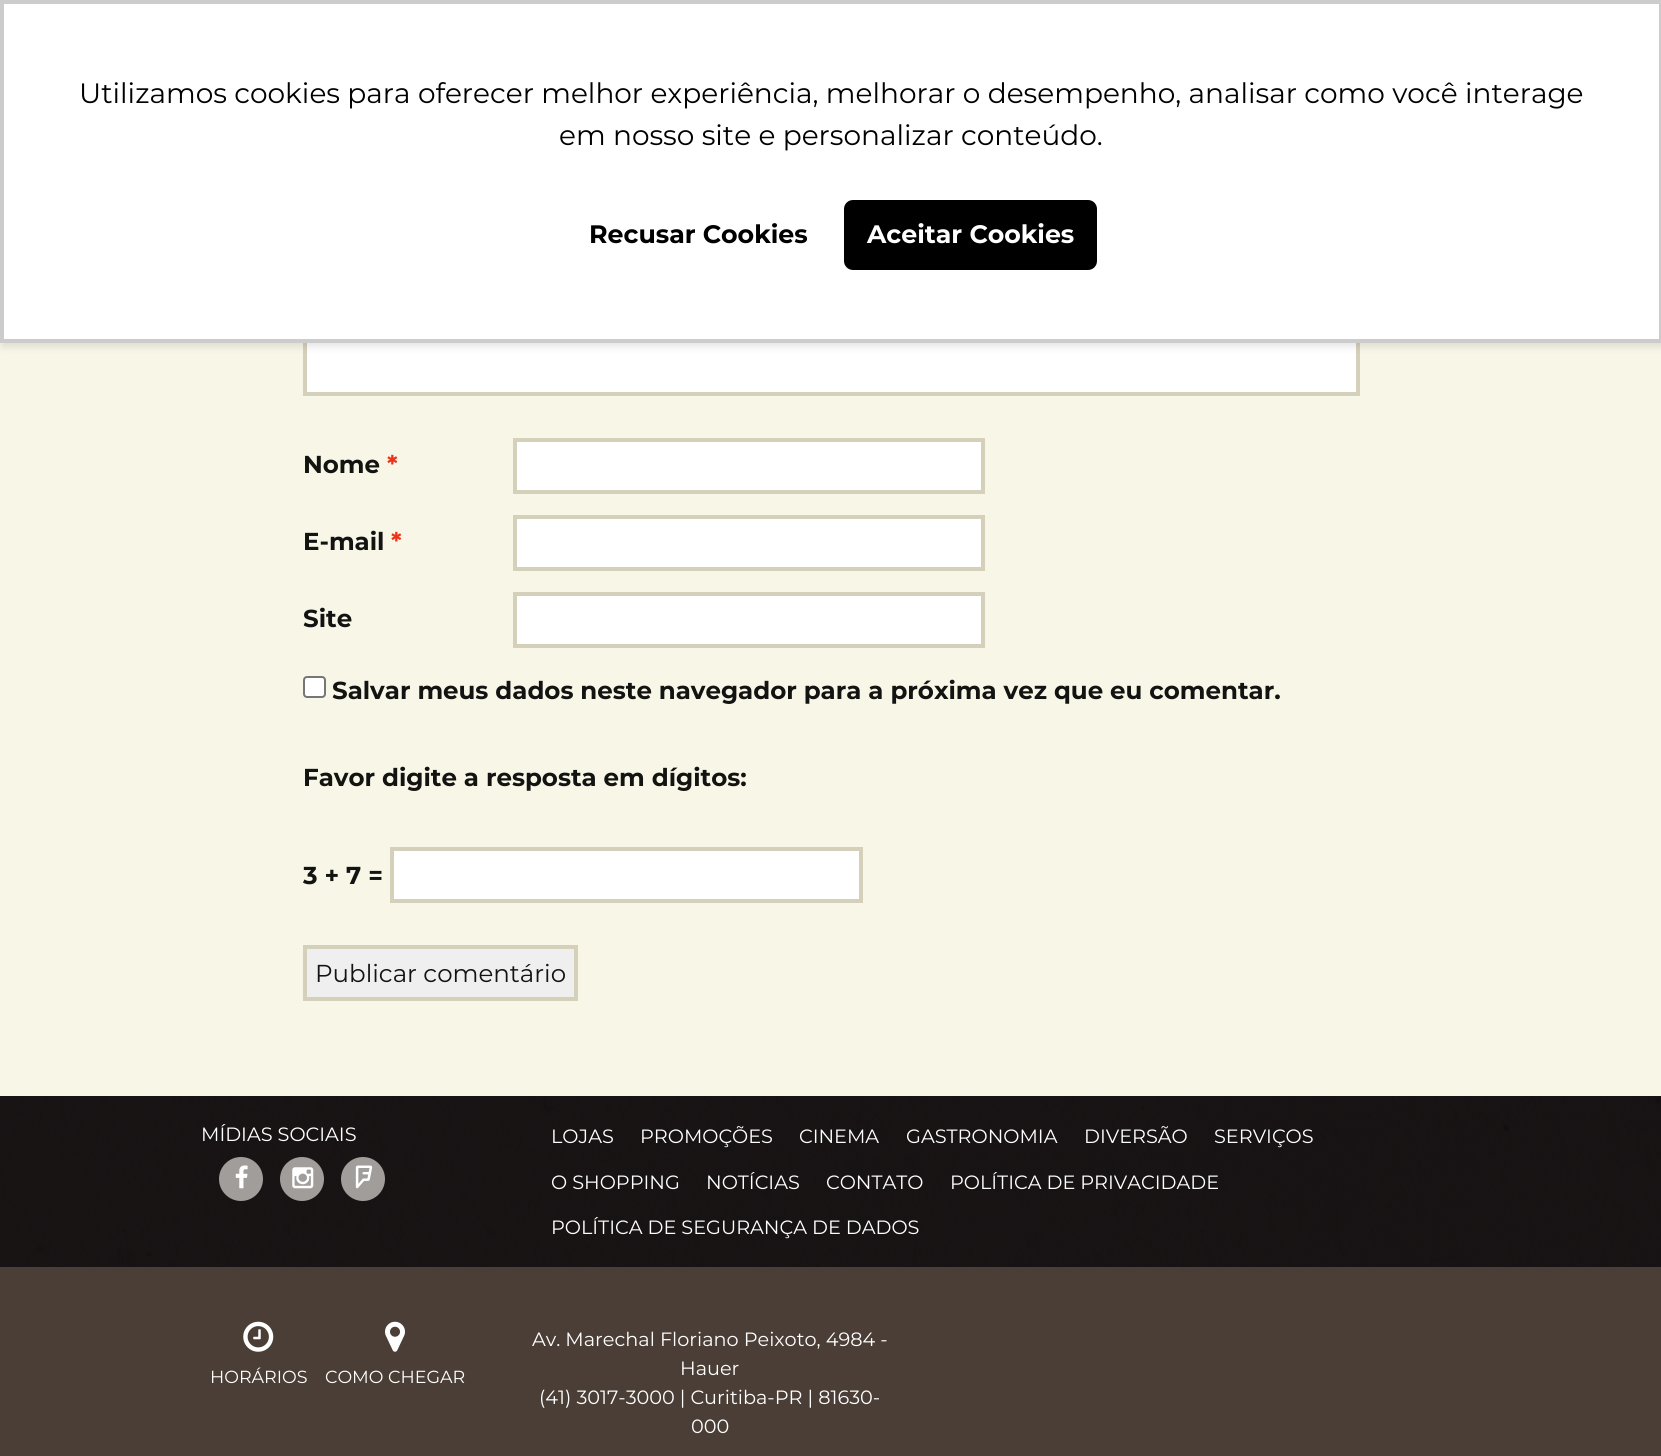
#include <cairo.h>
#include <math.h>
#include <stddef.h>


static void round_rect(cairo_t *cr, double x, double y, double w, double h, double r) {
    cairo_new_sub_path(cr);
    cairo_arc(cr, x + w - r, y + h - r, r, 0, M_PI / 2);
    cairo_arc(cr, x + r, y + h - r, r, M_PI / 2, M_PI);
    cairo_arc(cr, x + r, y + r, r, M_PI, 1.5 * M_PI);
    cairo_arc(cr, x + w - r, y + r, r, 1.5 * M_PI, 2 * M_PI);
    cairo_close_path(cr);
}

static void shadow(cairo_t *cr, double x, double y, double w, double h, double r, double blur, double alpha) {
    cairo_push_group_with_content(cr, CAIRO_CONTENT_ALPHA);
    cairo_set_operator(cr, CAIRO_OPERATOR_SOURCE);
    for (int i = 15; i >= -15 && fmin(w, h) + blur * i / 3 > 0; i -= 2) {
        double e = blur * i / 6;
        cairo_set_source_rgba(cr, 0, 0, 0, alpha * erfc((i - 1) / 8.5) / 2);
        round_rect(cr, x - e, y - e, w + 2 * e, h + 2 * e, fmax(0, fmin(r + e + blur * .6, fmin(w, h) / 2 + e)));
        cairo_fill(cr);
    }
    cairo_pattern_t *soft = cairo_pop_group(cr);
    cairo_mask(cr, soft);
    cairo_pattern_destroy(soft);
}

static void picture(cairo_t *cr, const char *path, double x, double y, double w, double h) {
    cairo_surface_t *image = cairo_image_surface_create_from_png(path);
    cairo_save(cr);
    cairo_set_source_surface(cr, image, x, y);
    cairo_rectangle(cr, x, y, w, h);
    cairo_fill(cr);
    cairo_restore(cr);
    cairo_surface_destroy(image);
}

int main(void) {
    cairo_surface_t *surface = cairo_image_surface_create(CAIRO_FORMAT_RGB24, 1661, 1456);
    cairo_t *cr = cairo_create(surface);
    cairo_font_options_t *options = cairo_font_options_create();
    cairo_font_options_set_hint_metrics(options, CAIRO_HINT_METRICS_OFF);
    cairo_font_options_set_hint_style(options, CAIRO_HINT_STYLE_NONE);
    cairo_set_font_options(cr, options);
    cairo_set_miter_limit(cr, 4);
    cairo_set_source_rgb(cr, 1, 1, 1);
    cairo_paint(cr);
    picture(cr, "img1.png", 0, 1096, 1661, 171);
    cairo_set_source_rgb(cr, 0.969, 0.961, 0.906);
    cairo_rectangle(cr, 0, 343, 1661, 753);
    cairo_fill(cr);
    cairo_set_source_rgb(cr, 1, 1, 1);
    cairo_rectangle(cr, 307, 343, 1049, 49);
    cairo_fill(cr);
    cairo_rectangle(cr, 305, 79, 1053, 315);
    cairo_set_source_rgb(cr, 0.831, 0.816, 0.729);
    cairo_set_line_width(cr, 4);
    cairo_stroke(cr);
    cairo_set_source_rgb(cr, 0, 0, 0);
    shadow(cr, 2, 4, 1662, 343, 0, 3.5, 0.1);
    cairo_set_source_rgb(cr, 1, 1, 1);
    cairo_rectangle(cr, 2, 2, 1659, 339);
    cairo_fill_preserve(cr);
    cairo_set_source_rgb(cr, 0.8, 0.8, 0.8);
    cairo_stroke(cr);
    cairo_select_font_face(cr, "Montserrat", CAIRO_FONT_SLANT_NORMAL, CAIRO_FONT_WEIGHT_NORMAL);
    cairo_set_font_size(cr, 28);
    cairo_set_source_rgb(cr, 0, 0, 0);
    cairo_move_to(cr, 79, 103);
    cairo_show_text(cr, "Utilizamos cookies para oferecer melhor experiência, melhorar o desempenho, analisar como você interage");
    cairo_move_to(cr, 559, 145);
    cairo_show_text(cr, "em nosso site e personalizar conteúdo.");
    cairo_select_font_face(cr, "Montserrat", CAIRO_FONT_SLANT_NORMAL, CAIRO_FONT_WEIGHT_BOLD);
    cairo_set_font_size(cr, 25.25);
    cairo_move_to(cr, 589, 243);
    cairo_show_text(cr, "Recusar Cookies");
    round_rect(cr, 844, 200, 253, 70, 9);
    cairo_fill(cr);
    cairo_set_source_rgb(cr, 1, 1, 1);
    cairo_move_to(cr, 867, 243);
    cairo_show_text(cr, "Aceitar Cookies");
    cairo_set_font_size(cr, 24.5);
    cairo_set_source_rgb(cr, 0.078, 0.078, 0.071);
    cairo_move_to(cr, 303, 473);
    cairo_show_text(cr, "Nome");
    cairo_set_source_rgb(cr, 0.929, 0.2, 0.11);
    cairo_move_to(cr, 387, 473);
    cairo_show_text(cr, "*");
    cairo_set_source_rgb(cr, 1, 1, 1);
    cairo_rectangle(cr, 515, 440, 468, 52);
    cairo_fill_preserve(cr);
    cairo_set_source_rgb(cr, 0.831, 0.816, 0.729);
    cairo_stroke(cr);
    cairo_set_source_rgb(cr, 0.078, 0.078, 0.071);
    cairo_move_to(cr, 303, 550);
    cairo_show_text(cr, "E-mail");
    cairo_set_source_rgb(cr, 0.929, 0.2, 0.11);
    cairo_move_to(cr, 391, 550);
    cairo_show_text(cr, "*");
    cairo_set_source_rgb(cr, 1, 1, 1);
    cairo_rectangle(cr, 515, 517, 468, 52);
    cairo_fill_preserve(cr);
    cairo_set_source_rgb(cr, 0.831, 0.816, 0.729);
    cairo_stroke(cr);
    cairo_set_source_rgb(cr, 0.078, 0.078, 0.071);
    cairo_move_to(cr, 303, 627);
    cairo_show_text(cr, "Site");
    cairo_set_source_rgb(cr, 1, 1, 1);
    cairo_rectangle(cr, 515, 594, 468, 52);
    cairo_fill_preserve(cr);
    cairo_set_source_rgb(cr, 0.831, 0.816, 0.729);
    cairo_stroke(cr);
    cairo_set_source_rgb(cr, 1, 1, 1);
    round_rect(cr, 304, 677, 21, 20, 3);
    cairo_fill_preserve(cr);
    cairo_set_source_rgb(cr, 0.463, 0.463, 0.463);
    cairo_set_line_width(cr, 2);
    cairo_stroke(cr);
    cairo_set_source_rgb(cr, 0.078, 0.078, 0.071);
    cairo_move_to(cr, 332, 699);
    cairo_show_text(cr, "Salvar meus dados neste navegador para a próxima vez que eu comentar.");
    cairo_move_to(cr, 303, 786);
    cairo_show_text(cr, "Favor digite a resposta em dígitos:");
    cairo_move_to(cr, 303, 884);
    cairo_show_text(cr, "3 + 7 =");
    cairo_set_source_rgb(cr, 1, 1, 1);
    cairo_rectangle(cr, 392, 849, 469, 52);
    cairo_fill_preserve(cr);
    cairo_set_source_rgb(cr, 0.831, 0.816, 0.729);
    cairo_set_line_width(cr, 4);
    cairo_stroke(cr);
    cairo_set_source_rgb(cr, 0.937, 0.937, 0.937);
    cairo_rectangle(cr, 305, 947, 271, 52);
    cairo_fill_preserve(cr);
    cairo_set_source_rgb(cr, 0.831, 0.816, 0.729);
    cairo_stroke(cr);
    cairo_select_font_face(cr, "Montserrat", CAIRO_FONT_SLANT_NORMAL, CAIRO_FONT_WEIGHT_NORMAL);
    cairo_set_source_rgb(cr, 0.078, 0.078, 0.071);
    cairo_move_to(cr, 315, 982);
    cairo_show_text(cr, "Publicar comentário");
    cairo_set_source_rgba(cr, 0, 0, 0, 0.9);
    cairo_rectangle(cr, 0, 1096, 1661, 171);
    cairo_fill(cr);
    cairo_set_font_size(cr, 19.25);
    cairo_set_source_rgb(cr, 1, 1, 1);
    cairo_move_to(cr, 201, 1141);
    cairo_show_text(cr, "MÍDIAS SOCIAIS");
    cairo_set_source_rgb(cr, 0.631, 0.616, 0.608);
    cairo_new_path(cr);
    cairo_arc(cr, 241, 1179, 22, 0, 2 * M_PI);
    cairo_fill(cr);
    picture(cr, "img2.png", 235, 1165, 13, 24);
    cairo_arc(cr, 302, 1179, 22, 0, 2 * M_PI);
    cairo_fill(cr);
    picture(cr, "img3.png", 292, 1167, 22, 22);
    cairo_arc(cr, 363, 1179, 22, 0, 2 * M_PI);
    cairo_fill(cr);
    picture(cr, "img4.png", 355, 1165, 18, 24);
    cairo_set_source_rgb(cr, 1, 1, 1);
    cairo_move_to(cr, 551, 1143);
    cairo_show_text(cr, "LOJAS");
    cairo_move_to(cr, 640, 1143);
    cairo_show_text(cr, "PROMOÇÕES");
    cairo_move_to(cr, 799, 1143);
    cairo_show_text(cr, "CINEMA");
    cairo_move_to(cr, 906, 1143);
    cairo_show_text(cr, "GASTRONOMIA");
    cairo_move_to(cr, 1084, 1143);
    cairo_show_text(cr, "DIVERSÃO");
    cairo_move_to(cr, 1214, 1143);
    cairo_show_text(cr, "SERVIÇOS");
    cairo_move_to(cr, 551, 1189);
    cairo_show_text(cr, "O SHOPPING");
    cairo_move_to(cr, 706, 1189);
    cairo_show_text(cr, "NOTÍCIAS");
    cairo_move_to(cr, 826, 1189);
    cairo_show_text(cr, "CONTATO");
    cairo_move_to(cr, 950, 1189);
    cairo_show_text(cr, "POLÍTICA DE PRIVACIDADE");
    cairo_move_to(cr, 551, 1234);
    cairo_show_text(cr, "POLÍTICA DE SEGURANÇA DE DADOS");
    cairo_set_source_rgb(cr, 0.29, 0.243, 0.212);
    cairo_rectangle(cr, 0, 1267, 1661, 189);
    cairo_fill(cr);
    picture(cr, "img5.png", 243, 1321, 31, 31);
    cairo_set_font_size(cr, 17.5);
    cairo_set_source_rgb(cr, 1, 1, 1);
    cairo_move_to(cr, 210, 1383);
    cairo_show_text(cr, "HORÁRIOS");
    picture(cr, "img6.png", 385, 1321, 20, 31);
    cairo_move_to(cr, 325, 1383);
    cairo_show_text(cr, "COMO CHEGAR");
    cairo_set_font_size(cr, 19.25);
    cairo_move_to(cr, 532, 1346);
    cairo_show_text(cr, "Av. Marechal Floriano Peixoto, 4984 -");
    cairo_move_to(cr, 680, 1375);
    cairo_show_text(cr, "Hauer");
    cairo_move_to(cr, 539, 1404);
    cairo_show_text(cr, "(41) 3017-3000 | Curitiba-PR | 81630-");
    cairo_move_to(cr, 691, 1433);
    cairo_show_text(cr, "000");
    cairo_surface_write_to_png(surface, "page.png");
    cairo_font_options_destroy(options);
    cairo_destroy(cr);
    cairo_surface_destroy(surface);
    return 0;
}
